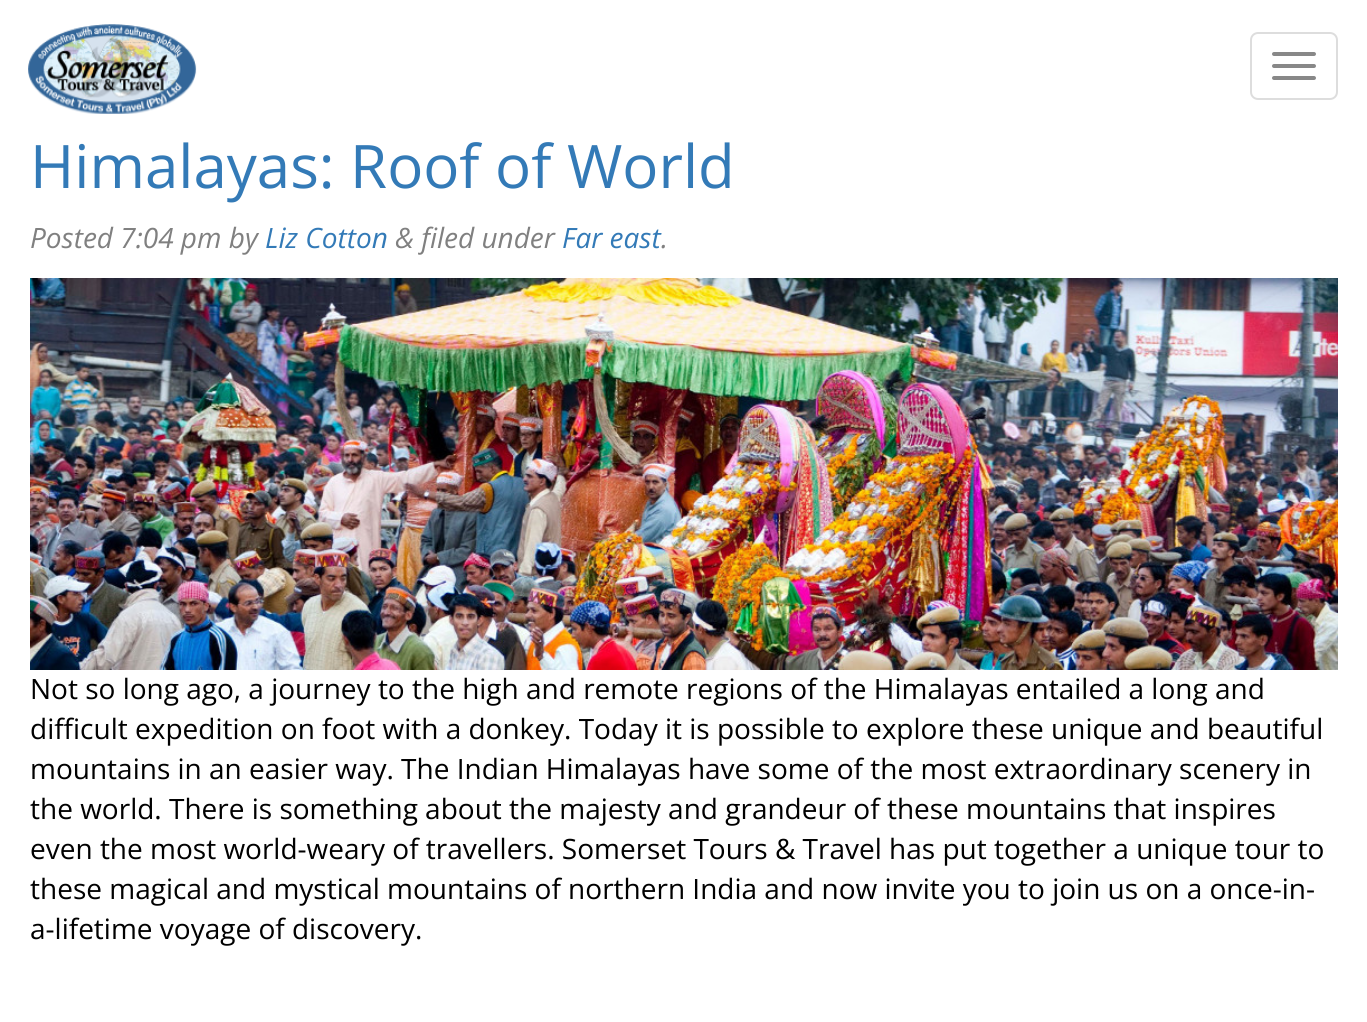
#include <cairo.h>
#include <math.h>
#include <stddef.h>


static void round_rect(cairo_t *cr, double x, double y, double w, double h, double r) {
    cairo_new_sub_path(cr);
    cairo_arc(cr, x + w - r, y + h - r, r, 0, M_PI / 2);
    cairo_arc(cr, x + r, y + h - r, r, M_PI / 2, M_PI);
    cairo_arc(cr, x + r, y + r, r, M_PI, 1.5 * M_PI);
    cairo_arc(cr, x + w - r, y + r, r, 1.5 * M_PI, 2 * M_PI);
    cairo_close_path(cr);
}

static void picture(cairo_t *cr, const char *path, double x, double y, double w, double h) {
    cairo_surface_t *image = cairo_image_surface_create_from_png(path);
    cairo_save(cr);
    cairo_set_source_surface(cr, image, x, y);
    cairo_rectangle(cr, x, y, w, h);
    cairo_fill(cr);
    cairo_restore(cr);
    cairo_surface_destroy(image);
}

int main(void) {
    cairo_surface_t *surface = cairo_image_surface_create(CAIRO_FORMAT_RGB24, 1367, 1022);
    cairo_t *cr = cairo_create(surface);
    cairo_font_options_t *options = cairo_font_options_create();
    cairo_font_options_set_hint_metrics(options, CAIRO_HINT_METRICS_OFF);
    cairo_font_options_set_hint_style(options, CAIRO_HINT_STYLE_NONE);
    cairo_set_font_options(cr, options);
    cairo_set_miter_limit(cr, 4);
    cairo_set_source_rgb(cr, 1, 1, 1);
    cairo_paint(cr);
    picture(cr, "img1.png", 28, 24, 169, 90);
    round_rect(cr, 1251, 33, 86, 66, 7);
    cairo_set_source_rgb(cr, 0.867, 0.867, 0.867);
    cairo_stroke(cr);
    cairo_set_source_rgb(cr, 0.533, 0.533, 0.533);
    round_rect(cr, 1272, 52, 44, 4, 2);
    cairo_fill(cr);
    round_rect(cr, 1272, 64, 44, 4, 2);
    cairo_fill(cr);
    round_rect(cr, 1272, 76, 44, 4, 2);
    cairo_fill(cr);
    cairo_select_font_face(cr, "Open Sans", CAIRO_FONT_SLANT_NORMAL, CAIRO_FONT_WEIGHT_NORMAL);
    cairo_set_font_size(cr, 60);
    cairo_set_source_rgb(cr, 0.2, 0.478, 0.718);
    cairo_move_to(cr, 30, 188);
    cairo_show_text(cr, "Himalayas: Roof of World");
    cairo_select_font_face(cr, "Open Sans", CAIRO_FONT_SLANT_ITALIC, CAIRO_FONT_WEIGHT_NORMAL);
    cairo_set_font_size(cr, 28);
    cairo_set_source_rgb(cr, 0.502, 0.502, 0.502);
    cairo_move_to(cr, 30, 248);
    cairo_show_text(cr, "Posted 7:04 pm by");
    cairo_set_source_rgb(cr, 0.2, 0.478, 0.718);
    cairo_move_to(cr, 265, 248);
    cairo_show_text(cr, "Liz Cotton");
    cairo_set_source_rgb(cr, 0.502, 0.502, 0.502);
    cairo_move_to(cr, 395, 248);
    cairo_show_text(cr, "& filed under");
    cairo_set_source_rgb(cr, 0.2, 0.478, 0.718);
    cairo_move_to(cr, 562, 248);
    cairo_show_text(cr, "Far east");
    cairo_set_source_rgb(cr, 0.502, 0.502, 0.502);
    cairo_move_to(cr, 661, 248);
    cairo_show_text(cr, ".");
    picture(cr, "img2.png", 30, 278, 1308, 392);
    cairo_select_font_face(cr, "Open Sans", CAIRO_FONT_SLANT_NORMAL, CAIRO_FONT_WEIGHT_NORMAL);
    cairo_set_source_rgb(cr, 0, 0, 0);
    cairo_move_to(cr, 30, 699);
    cairo_show_text(cr, "Not so long ago, a journey to the high and remote regions of the Himalayas entailed a long and");
    cairo_move_to(cr, 30, 739);
    cairo_show_text(cr, "difficult expedition on foot with a donkey. Today it is possible to explore these unique and beautiful");
    cairo_move_to(cr, 30, 779);
    cairo_show_text(cr, "mountains in an easier way. The Indian Himalayas have some of the most extraordinary scenery in");
    cairo_move_to(cr, 30, 819);
    cairo_show_text(cr, "the world. There is something about the majesty and grandeur of these mountains that inspires");
    cairo_move_to(cr, 30, 859);
    cairo_show_text(cr, "even the most world-weary of travellers. Somerset Tours & Travel has put together a unique tour to");
    cairo_move_to(cr, 30, 899);
    cairo_show_text(cr, "these magical and mystical mountains of northern India and now invite you to join us on a once-in-");
    cairo_move_to(cr, 30, 939);
    cairo_show_text(cr, "a-lifetime voyage of discovery.");
    cairo_surface_write_to_png(surface, "page.png");
    cairo_font_options_destroy(options);
    cairo_destroy(cr);
    cairo_surface_destroy(surface);
    return 0;
}
